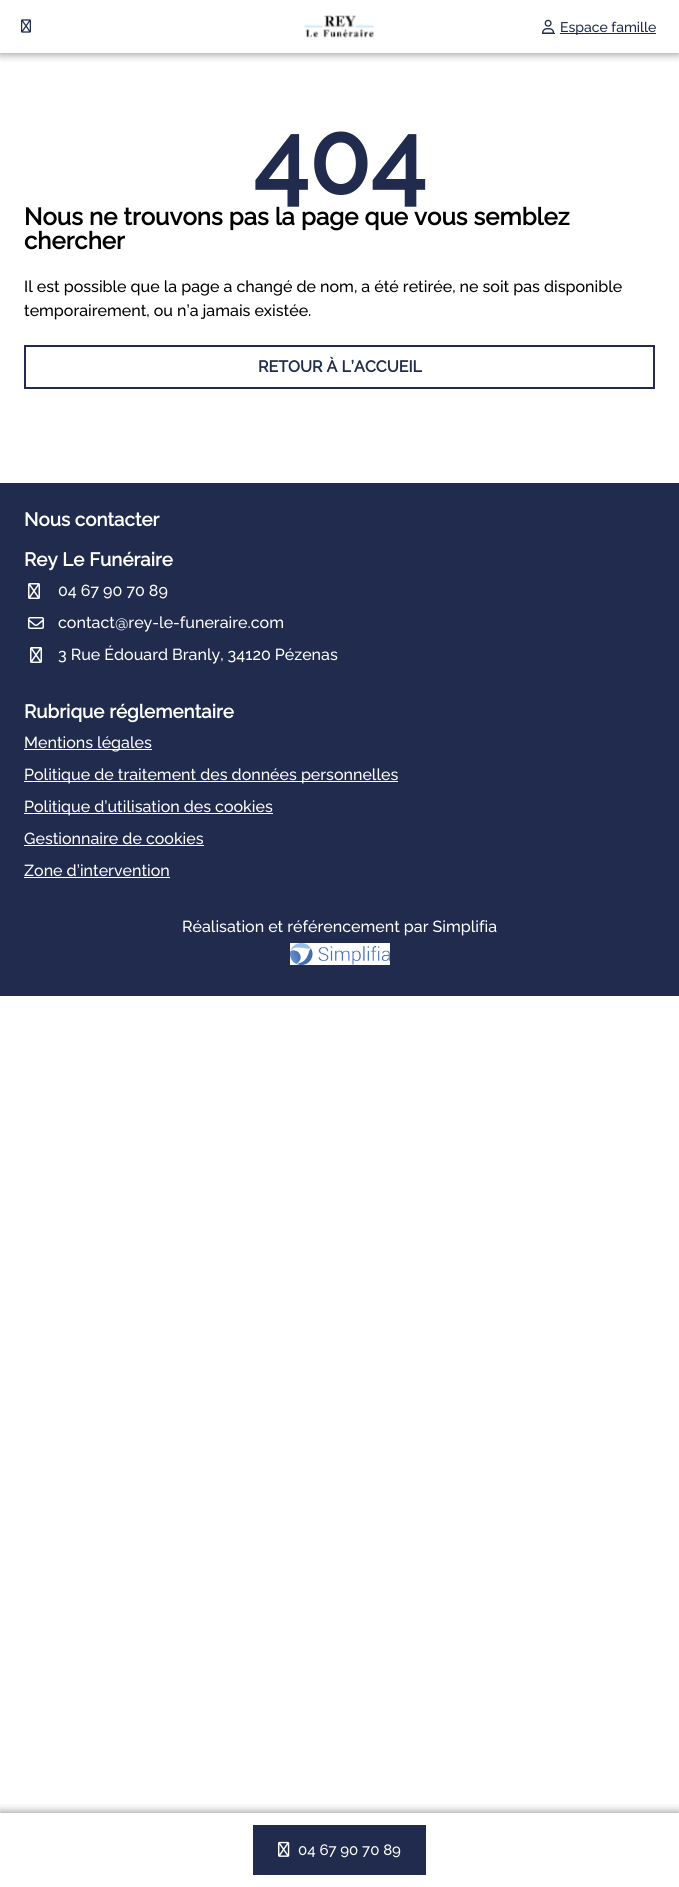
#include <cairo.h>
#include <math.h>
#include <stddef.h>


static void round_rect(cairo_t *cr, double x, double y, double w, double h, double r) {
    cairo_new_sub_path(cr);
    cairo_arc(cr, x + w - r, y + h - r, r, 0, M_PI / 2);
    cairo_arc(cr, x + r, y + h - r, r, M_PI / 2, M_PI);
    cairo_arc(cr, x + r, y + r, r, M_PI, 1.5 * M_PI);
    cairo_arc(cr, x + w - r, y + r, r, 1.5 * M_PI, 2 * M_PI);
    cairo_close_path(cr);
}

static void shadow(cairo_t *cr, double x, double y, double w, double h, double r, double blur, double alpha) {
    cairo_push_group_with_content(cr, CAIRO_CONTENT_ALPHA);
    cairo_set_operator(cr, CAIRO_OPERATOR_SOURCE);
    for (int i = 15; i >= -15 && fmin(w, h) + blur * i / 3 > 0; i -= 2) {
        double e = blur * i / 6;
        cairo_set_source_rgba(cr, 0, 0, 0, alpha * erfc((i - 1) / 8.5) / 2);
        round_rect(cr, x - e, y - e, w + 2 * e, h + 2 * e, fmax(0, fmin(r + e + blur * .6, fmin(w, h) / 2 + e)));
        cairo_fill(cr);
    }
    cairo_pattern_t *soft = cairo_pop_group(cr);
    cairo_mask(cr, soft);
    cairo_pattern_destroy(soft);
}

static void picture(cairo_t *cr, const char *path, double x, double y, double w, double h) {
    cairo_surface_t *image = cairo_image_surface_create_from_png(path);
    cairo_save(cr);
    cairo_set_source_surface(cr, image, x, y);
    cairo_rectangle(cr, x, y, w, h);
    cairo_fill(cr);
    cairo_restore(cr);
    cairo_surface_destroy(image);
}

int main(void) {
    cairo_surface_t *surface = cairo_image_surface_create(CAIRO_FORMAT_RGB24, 679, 1887);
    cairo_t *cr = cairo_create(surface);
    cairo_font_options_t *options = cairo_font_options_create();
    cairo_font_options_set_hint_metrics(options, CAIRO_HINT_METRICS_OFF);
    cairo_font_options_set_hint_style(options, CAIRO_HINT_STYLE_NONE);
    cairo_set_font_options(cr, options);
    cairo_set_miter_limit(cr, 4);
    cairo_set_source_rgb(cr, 1, 1, 1);
    cairo_paint(cr);
    cairo_save(cr);
    cairo_rectangle(cr, 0, 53, 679, 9);
    cairo_clip(cr);
    cairo_set_source_rgb(cr, 0, 0, 0);
    shadow(cr, 0, 0, 679, 53, 0, 5, 0.5);
    cairo_restore(cr);
    picture(cr, "img1.png", 21, 19, 10, 14);
    picture(cr, "img2.png", 304, 15, 70, 23);
    picture(cr, "img3.png", 542, 19, 13, 14);
    cairo_set_source_rgb(cr, 0.125, 0.169, 0.302);
    cairo_rectangle(cr, 542, 33, 13, 1);
    cairo_fill(cr);
    cairo_rectangle(cr, 560, 33, 96, 1);
    cairo_fill(cr);
    cairo_select_font_face(cr, "Raleway Thin", CAIRO_FONT_SLANT_NORMAL, CAIRO_FONT_WEIGHT_NORMAL);
    cairo_set_font_size(cr, 14);
    cairo_move_to(cr, 560, 32);
    cairo_show_text(cr, "Espace famille");
    cairo_save(cr);
    cairo_rectangle(cr, 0, 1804, 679, 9);
    cairo_clip(cr);
    cairo_set_source_rgb(cr, 0, 0, 0);
    shadow(cr, 0, 1813, 679, 74, 0, 5, 0.5);
    cairo_restore(cr);
    cairo_rectangle(cr, 253, 1825, 173, 50);
    cairo_fill(cr);
    picture(cr, "img4.png", 278, 1841, 12, 16);
    cairo_set_font_size(cr, 15);
    cairo_set_source_rgb(cr, 1, 1, 1);
    cairo_move_to(cr, 298, 1855);
    cairo_show_text(cr, "04 67 90 70 89");
    cairo_select_font_face(cr, "Raleway", CAIRO_FONT_SLANT_NORMAL, CAIRO_FONT_WEIGHT_BOLD);
    cairo_set_font_size(cr, 100);
    cairo_set_source_rgb(cr, 0.125, 0.169, 0.302);
    cairo_move_to(cr, 253, 194);
    cairo_show_text(cr, "404");
    cairo_set_font_size(cr, 24);
    cairo_set_source_rgb(cr, 0, 0, 0);
    cairo_move_to(cr, 24, 225);
    cairo_show_text(cr, "Nous ne trouvons pas la page que vous semblez");
    cairo_move_to(cr, 24, 249);
    cairo_show_text(cr, "chercher");
    cairo_select_font_face(cr, "Raleway Thin", CAIRO_FONT_SLANT_NORMAL, CAIRO_FONT_WEIGHT_NORMAL);
    cairo_set_font_size(cr, 16);
    cairo_move_to(cr, 24, 292);
    cairo_show_text(cr, "Il est possible que la page a changé de nom, a été retirée, ne soit pas disponible");
    cairo_move_to(cr, 24, 316);
    cairo_show_text(cr, "temporairement, ou n’a jamais existée.");
    cairo_rectangle(cr, 25, 346, 629, 42);
    cairo_set_source_rgb(cr, 0.125, 0.169, 0.302);
    cairo_stroke(cr);
    cairo_select_font_face(cr, "Raleway", CAIRO_FONT_SLANT_NORMAL, CAIRO_FONT_WEIGHT_BOLD);
    cairo_move_to(cr, 258, 372);
    cairo_show_text(cr, "RETOUR À L’ACCUEIL");
    cairo_rectangle(cr, 0, 483, 679, 513);
    cairo_fill(cr);
    cairo_set_font_size(cr, 18.75);
    cairo_set_source_rgb(cr, 1, 1, 1);
    cairo_move_to(cr, 24, 526);
    cairo_show_text(cr, "Nous contacter");
    cairo_move_to(cr, 24, 566);
    cairo_show_text(cr, "Rey Le Funéraire");
    picture(cr, "img5.png", 28, 583, 12, 16);
    cairo_select_font_face(cr, "Raleway Thin", CAIRO_FONT_SLANT_NORMAL, CAIRO_FONT_WEIGHT_NORMAL);
    cairo_set_font_size(cr, 16);
    cairo_move_to(cr, 58, 596);
    cairo_show_text(cr, "04 67 90 70 89");
    picture(cr, "img6.png", 28, 617, 16, 12);
    cairo_move_to(cr, 58, 628);
    cairo_show_text(cr, "contact@rey-le-funeraire.com");
    picture(cr, "img5.png", 30, 647, 12, 16);
    cairo_move_to(cr, 58, 660);
    cairo_show_text(cr, "3 Rue Édouard Branly, 34120 Pézenas");
    cairo_select_font_face(cr, "Raleway", CAIRO_FONT_SLANT_NORMAL, CAIRO_FONT_WEIGHT_BOLD);
    cairo_set_font_size(cr, 18.75);
    cairo_move_to(cr, 24, 718);
    cairo_show_text(cr, "Rubrique réglementaire");
    cairo_rectangle(cr, 24, 749, 128, 1);
    cairo_fill(cr);
    cairo_select_font_face(cr, "Raleway Thin", CAIRO_FONT_SLANT_NORMAL, CAIRO_FONT_WEIGHT_NORMAL);
    cairo_set_font_size(cr, 16);
    cairo_move_to(cr, 24, 748);
    cairo_show_text(cr, "Mentions légales");
    cairo_rectangle(cr, 24, 781, 374, 1);
    cairo_fill(cr);
    cairo_move_to(cr, 24, 780);
    cairo_show_text(cr, "Politique de traitement des données personnelles");
    cairo_rectangle(cr, 24, 813, 249, 1);
    cairo_fill(cr);
    cairo_move_to(cr, 24, 812);
    cairo_show_text(cr, "Politique d’utilisation des cookies");
    cairo_move_to(cr, 24, 844);
    cairo_show_text(cr, "Gestionnaire de cookies");
    cairo_rectangle(cr, 24, 845, 180, 1);
    cairo_fill(cr);
    cairo_move_to(cr, 24, 876);
    cairo_show_text(cr, "Zone d’intervention");
    cairo_rectangle(cr, 24, 877, 146, 1);
    cairo_fill(cr);
    cairo_move_to(cr, 182, 932);
    cairo_show_text(cr, "Réalisation et référencement par Simplifia");
    picture(cr, "img7.png", 290, 943, 100, 22);
    cairo_surface_write_to_png(surface, "page.png");
    cairo_font_options_destroy(options);
    cairo_destroy(cr);
    cairo_surface_destroy(surface);
    return 0;
}
